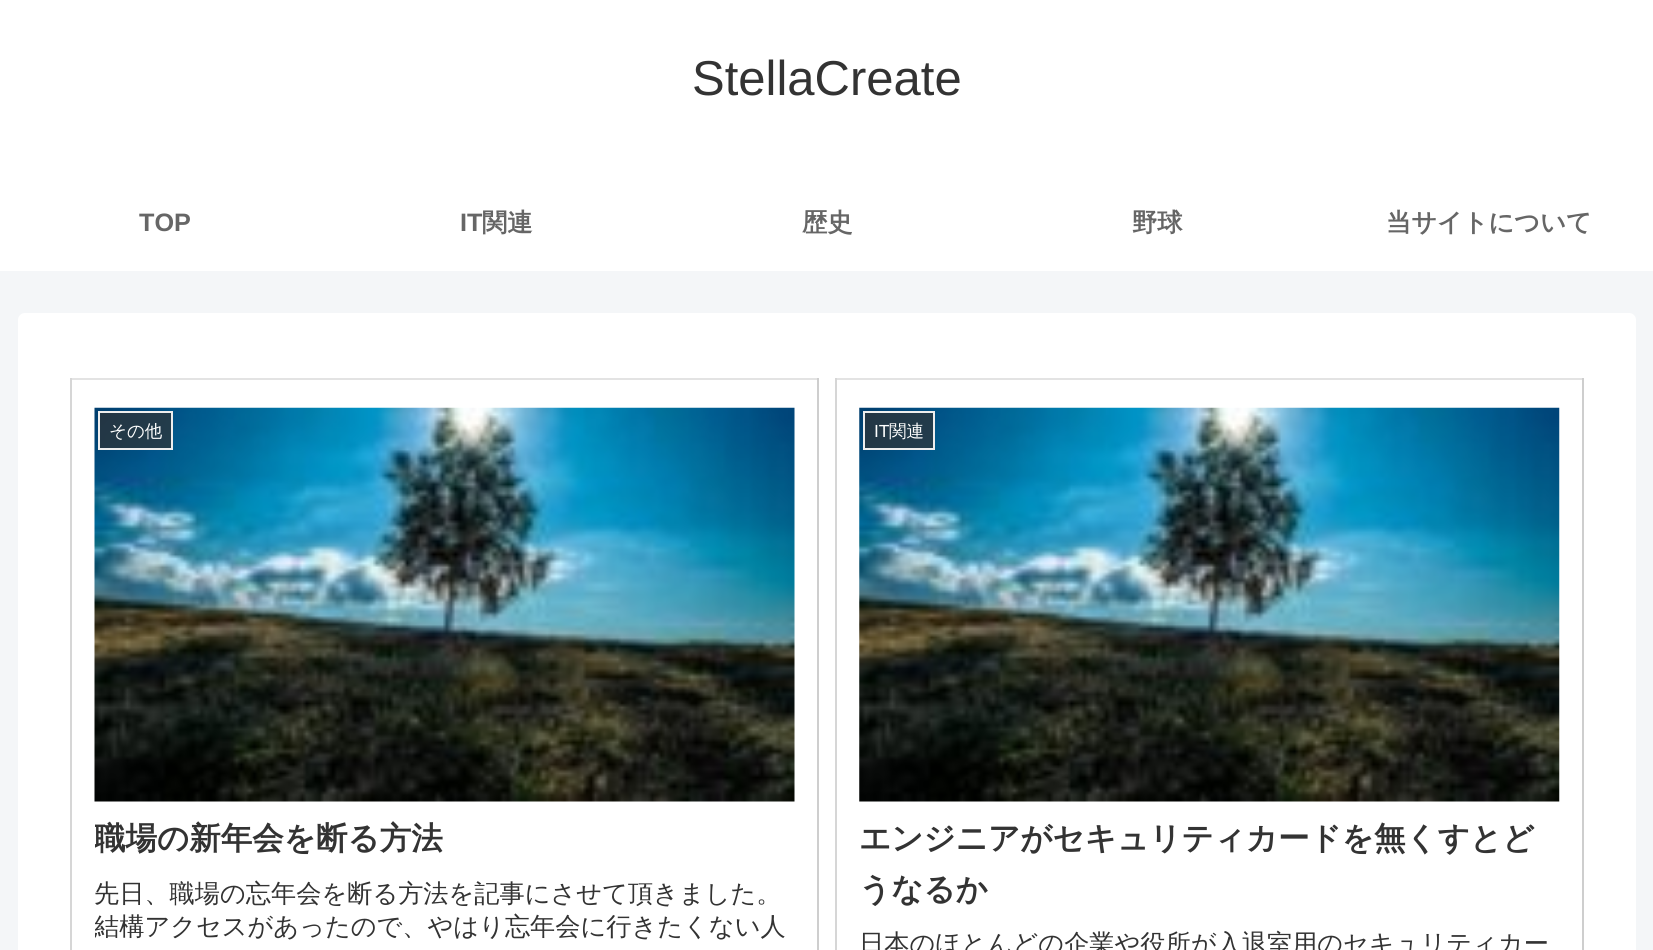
#include <cairo.h>
#include <math.h>
#include <stddef.h>


static void round_rect(cairo_t *cr, double x, double y, double w, double h, double r) {
    cairo_new_sub_path(cr);
    cairo_arc(cr, x + w - r, y + h - r, r, 0, M_PI / 2);
    cairo_arc(cr, x + r, y + h - r, r, M_PI / 2, M_PI);
    cairo_arc(cr, x + r, y + r, r, M_PI, 1.5 * M_PI);
    cairo_arc(cr, x + w - r, y + r, r, 1.5 * M_PI, 2 * M_PI);
    cairo_close_path(cr);
}

static void picture(cairo_t *cr, const char *path, double x, double y, double w, double h) {
    cairo_surface_t *image = cairo_image_surface_create_from_png(path);
    cairo_save(cr);
    cairo_set_source_surface(cr, image, x, y);
    cairo_rectangle(cr, x, y, w, h);
    cairo_fill(cr);
    cairo_restore(cr);
    cairo_surface_destroy(image);
}

int main(void) {
    cairo_surface_t *surface = cairo_image_surface_create(CAIRO_FORMAT_RGB24, 1653, 950);
    cairo_t *cr = cairo_create(surface);
    cairo_font_options_t *options = cairo_font_options_create();
    cairo_font_options_set_hint_metrics(options, CAIRO_HINT_METRICS_OFF);
    cairo_font_options_set_hint_style(options, CAIRO_HINT_STYLE_NONE);
    cairo_set_font_options(cr, options);
    cairo_set_miter_limit(cr, 4);
    cairo_set_source_rgb(cr, 0.957, 0.961, 0.969);
    cairo_paint(cr);
    cairo_set_source_rgb(cr, 1, 1, 1);
    cairo_rectangle(cr, 0, 0, 1653, 271);
    cairo_fill(cr);
    cairo_select_font_face(cr, "Liberation Sans", CAIRO_FONT_SLANT_NORMAL, CAIRO_FONT_WEIGHT_NORMAL);
    cairo_set_font_size(cr, 49);
    cairo_set_source_rgb(cr, 0.2, 0.2, 0.2);
    cairo_move_to(cr, 692, 95);
    cairo_show_text(cr, "StellaCreate");
    cairo_select_font_face(cr, "Liberation Sans", CAIRO_FONT_SLANT_NORMAL, CAIRO_FONT_WEIGHT_BOLD);
    cairo_set_font_size(cr, 25.2);
    cairo_set_source_rgb(cr, 0.4, 0.4, 0.4);
    cairo_move_to(cr, 139, 231);
    cairo_show_text(cr, "TOP");
    cairo_move_to(cr, 460, 231);
    cairo_show_text(cr, "IT");
    cairo_select_font_face(cr, "WenQuanYi Zen Hei", CAIRO_FONT_SLANT_NORMAL, CAIRO_FONT_WEIGHT_BOLD);
    cairo_move_to(cr, 482, 231);
    cairo_show_text(cr, "関連");
    cairo_move_to(cr, 802, 231);
    cairo_show_text(cr, "歴史");
    cairo_move_to(cr, 1132, 231);
    cairo_show_text(cr, "野球");
    cairo_move_to(cr, 1386, 231);
    cairo_show_text(cr, "当サイトについて");
    cairo_set_source_rgb(cr, 1, 1, 1);
    round_rect(cr, 18, 313, 1618, 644, 7);
    cairo_fill(cr);
    cairo_set_source_rgb(cr, 0.89, 0.89, 0.89);
    cairo_rectangle(cr, 70, 378, 749, 2);
    cairo_fill(cr);
    cairo_set_source_rgb(cr, 0.808, 0.808, 0.808);
    cairo_rectangle(cr, 817, 378, 2, 572);
    cairo_fill(cr);
    cairo_set_source_rgb(cr, 0.839, 0.839, 0.839);
    cairo_rectangle(cr, 70, 378, 2, 572);
    cairo_fill(cr);
    picture(cr, "img1.png", 94, 407, 701, 395);
    cairo_set_source_rgba(cr, 0.2, 0.2, 0.2, 0.7);
    cairo_rectangle(cr, 99, 412, 73, 37);
    cairo_fill_preserve(cr);
    cairo_set_source_rgb(cr, 0.933, 0.933, 0.933);
    cairo_stroke(cr);
    cairo_select_font_face(cr, "WenQuanYi Zen Hei Medium", CAIRO_FONT_SLANT_NORMAL, CAIRO_FONT_WEIGHT_NORMAL);
    cairo_set_font_size(cr, 17.5);
    cairo_set_source_rgb(cr, 1, 1, 1);
    cairo_move_to(cr, 109, 437);
    cairo_show_text(cr, "その他");
    cairo_save(cr);
    cairo_rectangle(cr, 95, 814, 700, 51);
    cairo_clip(cr);
    cairo_select_font_face(cr, "WenQuanYi Zen Hei", CAIRO_FONT_SLANT_NORMAL, CAIRO_FONT_WEIGHT_BOLD);
    cairo_set_font_size(cr, 31.5);
    cairo_set_source_rgb(cr, 0.2, 0.2, 0.2);
    cairo_move_to(cr, 94, 849);
    cairo_show_text(cr, "職場の新年会を断る方法");
    cairo_restore(cr);
    cairo_set_font_size(cr, 25.2);
    cairo_set_source_rgb(cr, 0.2, 0.2, 0.2);
    cairo_move_to(cr, 94, 902);
    cairo_show_text(cr, "先日、職場の忘年会を断る方法を記事にさせて頂きました。");
    cairo_save(cr);
    cairo_rectangle(cr, 95, 877, 700, 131);
    cairo_clip(cr);
    cairo_move_to(cr, 94, 935);
    cairo_show_text(cr, "結構アクセスがあったので、やはり忘年会に行きたくない人");
    cairo_restore(cr);
    cairo_set_source_rgb(cr, 0.89, 0.89, 0.89);
    cairo_rectangle(cr, 835, 378, 749, 2);
    cairo_fill(cr);
    cairo_set_source_rgb(cr, 0.808, 0.808, 0.808);
    cairo_rectangle(cr, 1582, 378, 2, 572);
    cairo_fill(cr);
    cairo_set_source_rgb(cr, 0.839, 0.839, 0.839);
    cairo_rectangle(cr, 835, 378, 2, 572);
    cairo_fill(cr);
    picture(cr, "img2.png", 859, 407, 701, 395);
    cairo_set_source_rgba(cr, 0.2, 0.2, 0.2, 0.7);
    cairo_rectangle(cr, 864, 412, 70, 37);
    cairo_fill_preserve(cr);
    cairo_set_source_rgb(cr, 0.933, 0.933, 0.933);
    cairo_stroke(cr);
    cairo_select_font_face(cr, "Liberation Sans", CAIRO_FONT_SLANT_NORMAL, CAIRO_FONT_WEIGHT_NORMAL);
    cairo_set_font_size(cr, 17.5);
    cairo_set_source_rgb(cr, 1, 1, 1);
    cairo_move_to(cr, 874, 437);
    cairo_show_text(cr, "IT");
    cairo_select_font_face(cr, "WenQuanYi Zen Hei Medium", CAIRO_FONT_SLANT_NORMAL, CAIRO_FONT_WEIGHT_NORMAL);
    cairo_move_to(cr, 889, 437);
    cairo_show_text(cr, "関連");
    cairo_select_font_face(cr, "WenQuanYi Zen Hei", CAIRO_FONT_SLANT_NORMAL, CAIRO_FONT_WEIGHT_BOLD);
    cairo_set_font_size(cr, 31.5);
    cairo_set_source_rgb(cr, 0.2, 0.2, 0.2);
    cairo_move_to(cr, 859, 849);
    cairo_show_text(cr, "エンジニアがセキュリティカードを無くすとど");
    cairo_move_to(cr, 859, 900);
    cairo_show_text(cr, "うなるか");
    cairo_select_font_face(cr, "WenQuanYi Zen Hei Medium", CAIRO_FONT_SLANT_NORMAL, CAIRO_FONT_WEIGHT_NORMAL);
    cairo_set_font_size(cr, 25.2);
    cairo_move_to(cr, 859, 952);
    cairo_show_text(cr, "日本のほとんどの企業や役所が入退室用のセキュリティカー");
    cairo_surface_write_to_png(surface, "page.png");
    cairo_font_options_destroy(options);
    cairo_destroy(cr);
    cairo_surface_destroy(surface);
    return 0;
}
